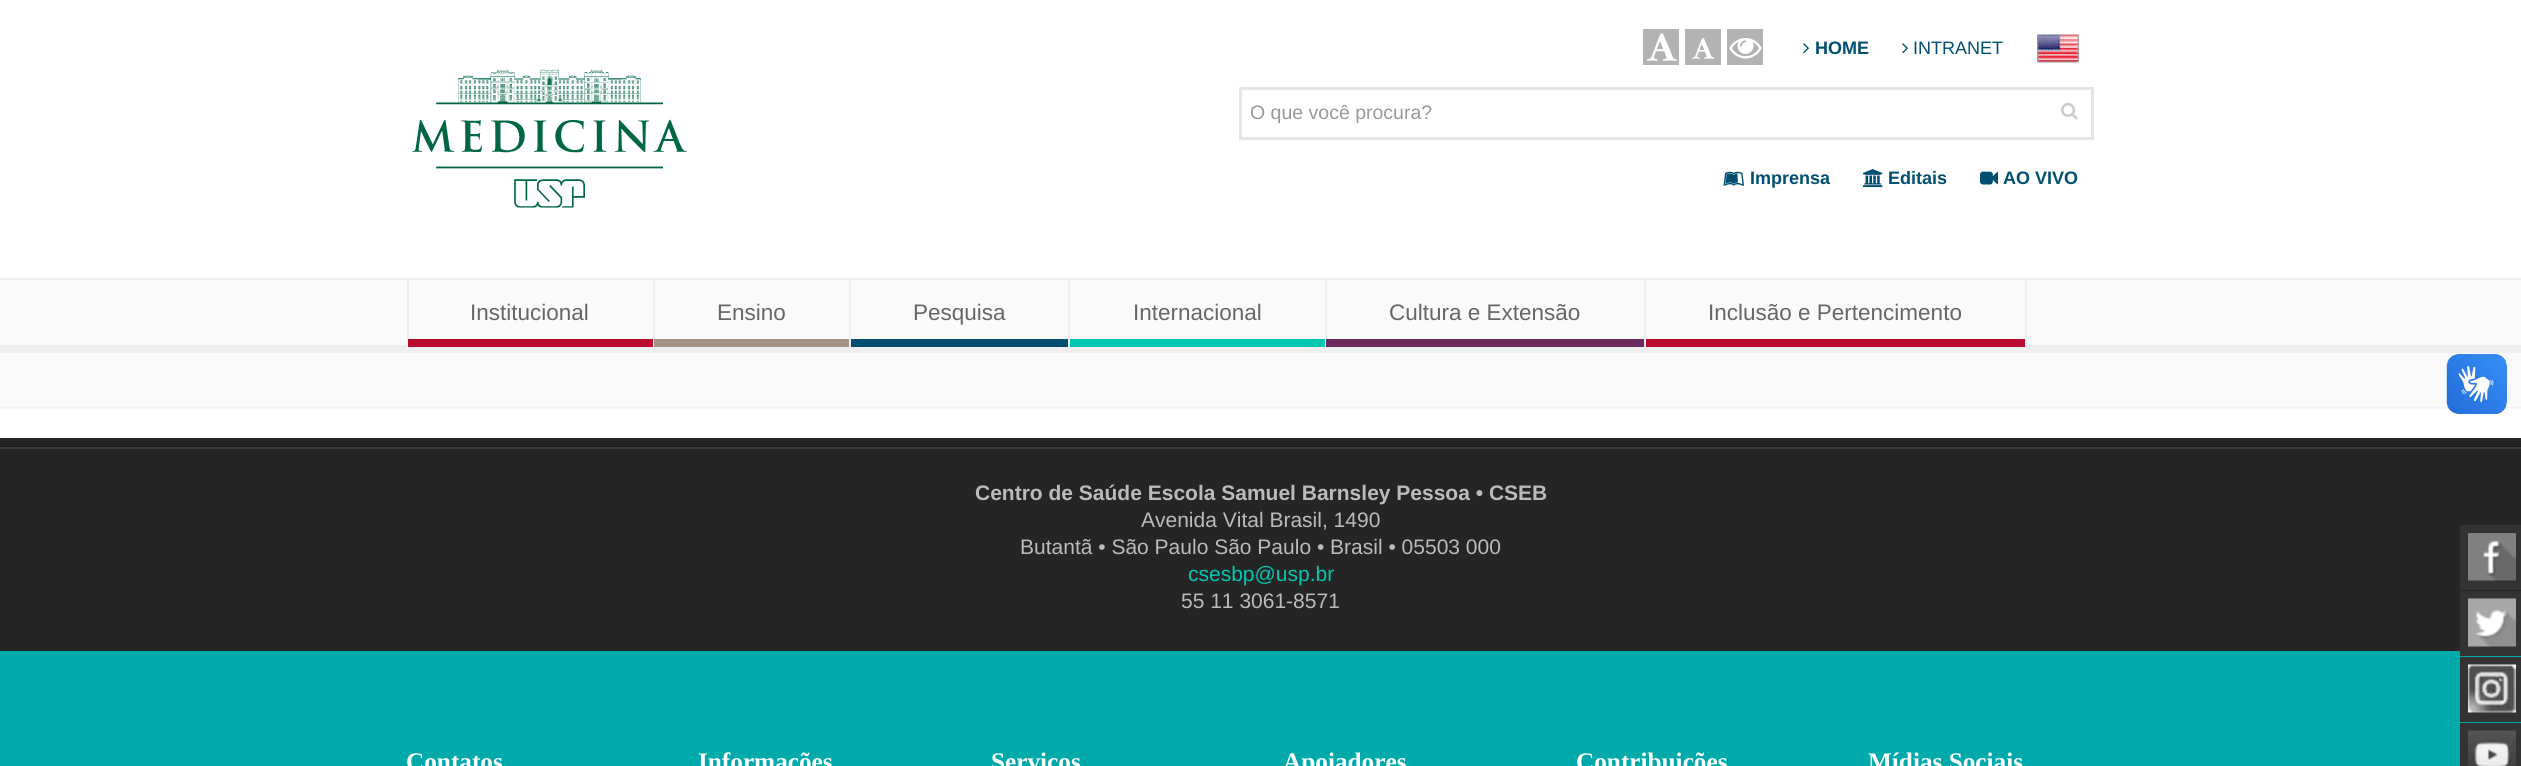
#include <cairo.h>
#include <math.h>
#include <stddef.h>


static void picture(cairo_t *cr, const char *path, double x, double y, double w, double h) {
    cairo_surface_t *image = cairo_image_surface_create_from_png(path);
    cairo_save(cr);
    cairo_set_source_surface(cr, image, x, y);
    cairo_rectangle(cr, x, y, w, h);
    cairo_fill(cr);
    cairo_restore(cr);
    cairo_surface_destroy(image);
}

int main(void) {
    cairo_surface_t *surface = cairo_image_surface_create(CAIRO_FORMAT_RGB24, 2521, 766);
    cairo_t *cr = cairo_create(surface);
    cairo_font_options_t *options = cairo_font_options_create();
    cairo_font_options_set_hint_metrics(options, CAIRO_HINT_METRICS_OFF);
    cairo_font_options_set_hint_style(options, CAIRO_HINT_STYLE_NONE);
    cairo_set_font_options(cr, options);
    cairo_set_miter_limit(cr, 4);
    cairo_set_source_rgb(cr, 1, 1, 1);
    cairo_paint(cr);
    cairo_set_source_rgb(cr, 0.969, 0.969, 0.969);
    cairo_rectangle(cr, 0, 408, 2521, 1);
    cairo_fill(cr);
    picture(cr, "img1.png", 412, 69, 275, 139);
    cairo_set_source_rgb(cr, 0.702, 0.702, 0.702);
    cairo_rectangle(cr, 1643, 29, 36, 36);
    cairo_fill(cr);
    picture(cr, "img2.png", 1647, 33, 30, 28);
    cairo_rectangle(cr, 1685, 29, 36, 36);
    cairo_fill(cr);
    picture(cr, "img3.png", 1692, 38, 23, 21);
    cairo_rectangle(cr, 1727, 29, 36, 36);
    cairo_fill(cr);
    picture(cr, "img4.png", 1729, 37, 33, 22);
    picture(cr, "img5.png", 1803, 43, 6, 11);
    cairo_select_font_face(cr, "Liberation Sans", CAIRO_FONT_SLANT_NORMAL, CAIRO_FONT_WEIGHT_BOLD);
    cairo_set_font_size(cr, 18);
    cairo_set_source_rgb(cr, 0, 0.31, 0.443);
    cairo_move_to(cr, 1815, 54);
    cairo_show_text(cr, "HOME");
    picture(cr, "img5.png", 1902, 43, 6, 11);
    cairo_select_font_face(cr, "Liberation Sans", CAIRO_FONT_SLANT_NORMAL, CAIRO_FONT_WEIGHT_NORMAL);
    cairo_move_to(cr, 1913, 54);
    cairo_show_text(cr, "INTRANET");
    picture(cr, "img6.png", 2037, 34, 42, 29);
    cairo_rectangle(cr, 1240.5, 88.5, 852, 50);
    cairo_set_source_rgb(cr, 0.902, 0.902, 0.902);
    cairo_set_line_width(cr, 3);
    cairo_stroke(cr);
    cairo_set_font_size(cr, 19.5);
    cairo_set_source_rgb(cr, 0.6, 0.6, 0.6);
    cairo_move_to(cr, 1250, 119);
    cairo_show_text(cr, "O que você procura?");
    picture(cr, "img7.png", 2061, 102, 17, 18);
    picture(cr, "img8.png", 1723, 171, 21, 15);
    cairo_select_font_face(cr, "Liberation Sans", CAIRO_FONT_SLANT_NORMAL, CAIRO_FONT_WEIGHT_BOLD);
    cairo_set_font_size(cr, 18);
    cairo_set_source_rgb(cr, 0, 0.31, 0.443);
    cairo_move_to(cr, 1750, 184);
    cairo_show_text(cr, "Imprensa");
    picture(cr, "img9.png", 1863, 169, 20, 19);
    cairo_move_to(cr, 1888, 184);
    cairo_show_text(cr, "Editais");
    picture(cr, "img10.png", 1980, 171, 18, 14);
    cairo_move_to(cr, 2003, 184);
    cairo_show_text(cr, "AO VIVO");
    cairo_set_source_rgb(cr, 0.973, 0.973, 0.973);
    cairo_rectangle(cr, 0, 347, 2521, 60);
    cairo_fill(cr);
    cairo_set_source_rgba(cr, 0, 0, 0, 0.04);
    cairo_new_path(cr);
    cairo_move_to(cr, 0, 346);
    cairo_line_to(cr, 0, 353);
    cairo_line_to(cr, 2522, 353);
    cairo_line_to(cr, 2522, 284);
    cairo_line_to(cr, 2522, 346);
    cairo_close_path(cr);
    cairo_fill(cr);
    cairo_set_source_rgb(cr, 0.98, 0.98, 0.98);
    cairo_rectangle(cr, 0, 280, 2521, 65);
    cairo_fill(cr);
    cairo_set_source_rgb(cr, 0.933, 0.933, 0.933);
    cairo_rectangle(cr, 0, 278, 2521, 2);
    cairo_fill(cr);
    cairo_rectangle(cr, 0, 345, 2521, 2);
    cairo_fill(cr);
    cairo_rectangle(cr, 407, 279, 2, 66);
    cairo_fill(cr);
    cairo_select_font_face(cr, "Liberation Sans", CAIRO_FONT_SLANT_NORMAL, CAIRO_FONT_WEIGHT_NORMAL);
    cairo_set_font_size(cr, 22.5);
    cairo_set_source_rgb(cr, 0.4, 0.4, 0.4);
    cairo_move_to(cr, 470, 320);
    cairo_show_text(cr, "Institucional");
    cairo_set_source_rgb(cr, 0.729, 0.047, 0.184);
    cairo_rectangle(cr, 408, 339, 245, 8);
    cairo_fill(cr);
    cairo_set_source_rgb(cr, 0.933, 0.933, 0.933);
    cairo_rectangle(cr, 653, 279, 2, 66);
    cairo_fill(cr);
    cairo_set_source_rgb(cr, 0.4, 0.4, 0.4);
    cairo_move_to(cr, 717, 320);
    cairo_show_text(cr, "Ensino");
    cairo_set_source_rgb(cr, 0.639, 0.576, 0.51);
    cairo_rectangle(cr, 654, 339, 195, 8);
    cairo_fill(cr);
    cairo_set_source_rgb(cr, 0.933, 0.933, 0.933);
    cairo_rectangle(cr, 849, 279, 2, 66);
    cairo_fill(cr);
    cairo_set_source_rgb(cr, 0.4, 0.4, 0.4);
    cairo_move_to(cr, 913, 320);
    cairo_show_text(cr, "Pesquisa");
    cairo_set_source_rgb(cr, 0, 0.31, 0.443);
    cairo_rectangle(cr, 851, 339, 217, 8);
    cairo_fill(cr);
    cairo_set_source_rgb(cr, 0.933, 0.933, 0.933);
    cairo_rectangle(cr, 1068, 279, 2, 66);
    cairo_fill(cr);
    cairo_set_source_rgb(cr, 0.4, 0.4, 0.4);
    cairo_move_to(cr, 1133, 320);
    cairo_show_text(cr, "Internacional");
    cairo_set_source_rgb(cr, 0, 0.78, 0.694);
    cairo_rectangle(cr, 1070, 339, 255, 8);
    cairo_fill(cr);
    cairo_set_source_rgb(cr, 0.933, 0.933, 0.933);
    cairo_rectangle(cr, 1325, 279, 2, 66);
    cairo_fill(cr);
    cairo_set_source_rgb(cr, 0.4, 0.4, 0.4);
    cairo_move_to(cr, 1389, 320);
    cairo_show_text(cr, "Cultura e Extensão");
    cairo_set_source_rgb(cr, 0.416, 0.165, 0.357);
    cairo_rectangle(cr, 1326, 339, 318, 8);
    cairo_fill(cr);
    cairo_set_source_rgb(cr, 0.933, 0.933, 0.933);
    cairo_rectangle(cr, 2025, 279, 2, 66);
    cairo_fill(cr);
    cairo_rectangle(cr, 1644, 279, 2, 66);
    cairo_fill(cr);
    cairo_set_source_rgb(cr, 0.4, 0.4, 0.4);
    cairo_move_to(cr, 1708, 320);
    cairo_show_text(cr, "Inclusão e Pertencimento");
    cairo_set_source_rgb(cr, 0.729, 0.047, 0.184);
    cairo_rectangle(cr, 1646, 339, 379, 8);
    cairo_fill(cr);
    cairo_set_source_rgb(cr, 0.945, 0.945, 0.945);
    cairo_rectangle(cr, 0, 407, 2521, 1);
    cairo_fill(cr);
    picture(cr, "img11.png", 2446, 354, 61, 60);
    picture(cr, "img12.png", 2447, 354, 60, 60);
    cairo_set_source_rgb(cr, 0.145, 0.145, 0.145);
    cairo_rectangle(cr, 0, 438, 2521, 8);
    cairo_fill(cr);
    cairo_set_source_rgb(cr, 0.102, 0.102, 0.102);
    cairo_rectangle(cr, 0, 446, 2521, 1);
    cairo_fill(cr);
    cairo_set_source_rgb(cr, 0.239, 0.239, 0.239);
    cairo_rectangle(cr, 0, 447, 2521, 2);
    cairo_fill(cr);
    cairo_set_source_rgb(cr, 0.145, 0.145, 0.145);
    cairo_rectangle(cr, 0, 449, 2521, 195);
    cairo_fill(cr);
    cairo_select_font_face(cr, "Liberation Sans", CAIRO_FONT_SLANT_NORMAL, CAIRO_FONT_WEIGHT_BOLD);
    cairo_set_font_size(cr, 21);
    cairo_set_source_rgb(cr, 0.733, 0.733, 0.733);
    cairo_move_to(cr, 975, 500);
    cairo_show_text(cr, "Centro de Saúde Escola Samuel Barnsley Pessoa • CSEB");
    cairo_select_font_face(cr, "Liberation Sans", CAIRO_FONT_SLANT_NORMAL, CAIRO_FONT_WEIGHT_NORMAL);
    cairo_move_to(cr, 1141, 527);
    cairo_show_text(cr, "Avenida Vital Brasil, 1490");
    cairo_move_to(cr, 1020, 554);
    cairo_show_text(cr, "Butantã • São Paulo São Paulo • Brasil • 05503 000");
    cairo_set_source_rgb(cr, 0, 0.78, 0.694);
    cairo_move_to(cr, 1188, 581);
    cairo_show_text(cr, "csesbp@usp.br");
    cairo_set_source_rgb(cr, 0.733, 0.733, 0.733);
    cairo_move_to(cr, 1181, 608);
    cairo_show_text(cr, "55 11 3061-8571");
    cairo_set_source_rgb(cr, 0, 0.667, 0.671);
    cairo_rectangle(cr, 0, 651, 2521, 115);
    cairo_fill(cr);
    cairo_set_source_rgb(cr, 0.145, 0.145, 0.145);
    cairo_rectangle(cr, 0, 644, 2460, 7);
    cairo_fill(cr);
    cairo_select_font_face(cr, "Liberation Serif", CAIRO_FONT_SLANT_NORMAL, CAIRO_FONT_WEIGHT_BOLD);
    cairo_set_font_size(cr, 25.25);
    cairo_set_source_rgb(cr, 1, 1, 1);
    cairo_move_to(cr, 406, 770);
    cairo_show_text(cr, "Contatos");
    cairo_move_to(cr, 698, 770);
    cairo_show_text(cr, "Informações");
    cairo_move_to(cr, 991, 770);
    cairo_show_text(cr, "Serviços");
    cairo_move_to(cr, 1283, 770);
    cairo_show_text(cr, "Apoiadores");
    cairo_move_to(cr, 1576, 770);
    cairo_show_text(cr, "Contribuições");
    cairo_move_to(cr, 1868, 770);
    cairo_show_text(cr, "Mídias Sociais");
    cairo_set_source_rgb(cr, 0.2, 0.2, 0.2);
    cairo_rectangle(cr, 2460, 525, 61, 65);
    cairo_fill(cr);
    picture(cr, "img13.png", 2468, 533, 48, 48);
    cairo_rectangle(cr, 2460, 591, 61, 65);
    cairo_fill(cr);
    picture(cr, "img14.png", 2468, 598, 48, 49);
    cairo_rectangle(cr, 2460, 657, 61, 65);
    cairo_fill(cr);
    picture(cr, "img15.png", 2468, 664, 48, 49);
    cairo_rectangle(cr, 2460, 723, 61, 43);
    cairo_fill(cr);
    picture(cr, "img16.png", 2468, 730, 48, 36);
    cairo_surface_write_to_png(surface, "page.png");
    cairo_font_options_destroy(options);
    cairo_destroy(cr);
    cairo_surface_destroy(surface);
    return 0;
}
